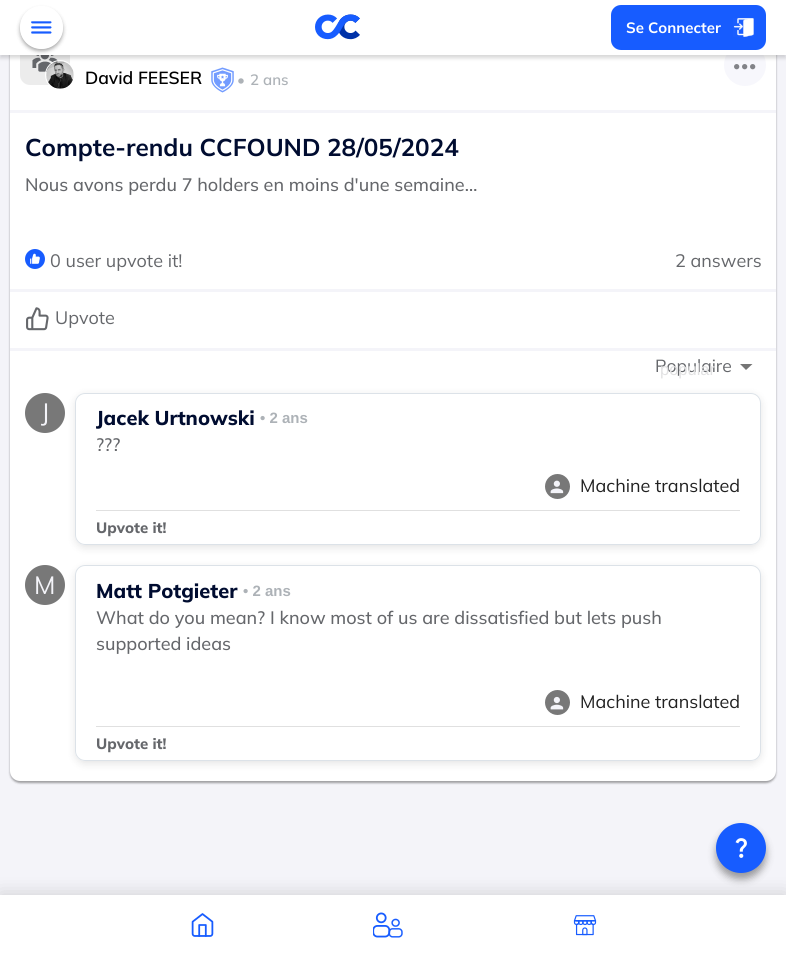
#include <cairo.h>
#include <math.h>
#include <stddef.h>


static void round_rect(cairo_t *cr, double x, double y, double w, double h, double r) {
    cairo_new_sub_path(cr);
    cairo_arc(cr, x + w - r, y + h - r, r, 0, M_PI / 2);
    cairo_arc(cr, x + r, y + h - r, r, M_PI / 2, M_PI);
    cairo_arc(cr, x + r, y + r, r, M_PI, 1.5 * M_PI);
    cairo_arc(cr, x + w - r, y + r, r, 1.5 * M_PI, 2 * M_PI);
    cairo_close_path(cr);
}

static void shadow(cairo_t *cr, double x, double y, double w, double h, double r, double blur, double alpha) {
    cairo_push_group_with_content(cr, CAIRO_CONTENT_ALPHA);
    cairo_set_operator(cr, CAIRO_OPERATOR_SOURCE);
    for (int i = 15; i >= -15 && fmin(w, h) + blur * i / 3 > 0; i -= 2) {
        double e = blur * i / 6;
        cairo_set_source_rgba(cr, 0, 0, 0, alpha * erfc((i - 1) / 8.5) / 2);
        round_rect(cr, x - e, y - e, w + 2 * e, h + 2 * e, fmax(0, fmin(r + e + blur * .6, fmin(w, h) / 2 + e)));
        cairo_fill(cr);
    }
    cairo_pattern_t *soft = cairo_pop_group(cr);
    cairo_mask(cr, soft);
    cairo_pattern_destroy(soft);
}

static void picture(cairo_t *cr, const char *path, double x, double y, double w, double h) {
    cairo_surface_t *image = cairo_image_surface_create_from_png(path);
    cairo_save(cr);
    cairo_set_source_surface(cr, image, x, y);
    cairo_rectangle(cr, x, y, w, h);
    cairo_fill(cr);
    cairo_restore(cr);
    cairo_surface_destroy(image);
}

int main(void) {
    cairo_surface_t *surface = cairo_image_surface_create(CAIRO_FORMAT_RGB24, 786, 954);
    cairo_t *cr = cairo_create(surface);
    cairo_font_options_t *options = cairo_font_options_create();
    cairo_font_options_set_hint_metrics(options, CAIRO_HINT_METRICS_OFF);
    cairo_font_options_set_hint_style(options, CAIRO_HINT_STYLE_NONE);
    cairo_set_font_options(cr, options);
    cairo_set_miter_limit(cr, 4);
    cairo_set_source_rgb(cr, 0.957, 0.957, 0.976);
    cairo_paint(cr);
    cairo_set_source_rgb(cr, 0, 0, 0);
    shadow(cr, 10, 21, 766, 762, 10, 1, 0.35);
    cairo_set_source_rgb(cr, 1, 1, 1);
    round_rect(cr, 10, 20, 766, 761, 10);
    cairo_fill(cr);
    picture(cr, "img4.png", 20, 55, 50, 30);
    cairo_arc(cr, 60, 75, 14.5, 0, 2 * M_PI);
    cairo_set_line_width(cr, 1);
    cairo_stroke(cr);
    picture(cr, "img5.png", 46, 61, 28, 28);
    cairo_set_source_rgb(cr, 0.965, 0.965, 0.988);
    cairo_arc(cr, 745, 65, 21, 0, 2 * M_PI);
    cairo_fill(cr);
    picture(cr, "img7.png", 734, 64, 22, 6);
    cairo_set_source_rgb(cr, 0, 0, 0);
    shadow(cr, 0, 3, 786, 55, 0, 2, 0.16);
    cairo_set_source_rgb(cr, 1, 1, 1);
    cairo_rectangle(cr, 0, 0, 786, 55);
    cairo_fill(cr);
    cairo_save(cr);
    cairo_set_fill_rule(cr, CAIRO_FILL_RULE_EVEN_ODD);
    cairo_new_path(cr);
    cairo_move_to(cr, 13, 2);
    cairo_line_to(cr, 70, 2);
    cairo_line_to(cr, 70, 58);
    cairo_line_to(cr, 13, 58);
    cairo_close_path(cr);
    cairo_move_to(cr, 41.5, 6);
    cairo_curve_to(cr, 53.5, 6, 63, 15.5, 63, 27.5);
    cairo_curve_to(cr, 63, 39.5, 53.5, 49, 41.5, 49);
    cairo_curve_to(cr, 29.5, 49, 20, 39.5, 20, 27.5);
    cairo_curve_to(cr, 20, 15.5, 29.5, 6, 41.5, 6);
    cairo_close_path(cr);
    cairo_clip(cr);
    cairo_set_source_rgb(cr, 0, 0, 0);
    shadow(cr, 20, 9, 43, 42, 21, 2, 0.35);
    cairo_restore(cr);
    picture(cr, "img1.png", 31, 21, 21, 13);
    picture(cr, "img2.png", 315, 14, 45, 26);
    cairo_set_source_rgb(cr, 0.09, 0.361, 1);
    round_rect(cr, 611, 5, 155, 45, 10);
    cairo_fill(cr);
    cairo_select_font_face(cr, "Mulish", CAIRO_FONT_SLANT_NORMAL, CAIRO_FONT_WEIGHT_BOLD);
    cairo_set_font_size(cr, 15);
    cairo_set_source_rgb(cr, 1, 1, 1);
    cairo_move_to(cr, 626, 33);
    cairo_show_text(cr, "Se Connecter");
    picture(cr, "img3.png", 733, 18, 21, 19);
    cairo_select_font_face(cr, "Mulish SemiBold", CAIRO_FONT_SLANT_NORMAL, CAIRO_FONT_WEIGHT_NORMAL);
    cairo_set_font_size(cr, 17.5);
    cairo_set_source_rgb(cr, 0, 0, 0);
    cairo_move_to(cr, 85, 84);
    cairo_show_text(cr, "David FEESER");
    picture(cr, "img6.png", 211, 67, 23, 26);
    cairo_set_font_size(cr, 15);
    cairo_set_source_rgb(cr, 0.678, 0.698, 0.718);
    cairo_move_to(cr, 237, 85);
    cairo_show_text(cr, "•");
    cairo_move_to(cr, 250, 85);
    cairo_show_text(cr, "2 ans");
    cairo_set_source_rgb(cr, 0.957, 0.957, 0.976);
    cairo_rectangle(cr, 10, 110, 766, 3);
    cairo_fill(cr);
    cairo_rectangle(cr, 10, 289, 766, 3);
    cairo_fill(cr);
    cairo_select_font_face(cr, "Mulish", CAIRO_FONT_SLANT_NORMAL, CAIRO_FONT_WEIGHT_BOLD);
    cairo_set_font_size(cr, 24.25);
    cairo_set_source_rgb(cr, 0, 0.047, 0.188);
    cairo_move_to(cr, 25, 156);
    cairo_show_text(cr, "Compte-rendu CCFOUND 28/05/2024");
    cairo_select_font_face(cr, "Mulish Medium", CAIRO_FONT_SLANT_NORMAL, CAIRO_FONT_WEIGHT_NORMAL);
    cairo_set_font_size(cr, 18);
    cairo_set_source_rgb(cr, 0.396, 0.404, 0.42);
    cairo_move_to(cr, 25, 191);
    cairo_show_text(cr, "Nous avons perdu 7 holders en moins d'une semaine…");
    cairo_set_source_rgb(cr, 0.09, 0.361, 1);
    cairo_new_path(cr);
    cairo_arc(cr, 35, 259, 10, 0, 2 * M_PI);
    cairo_fill(cr);
    picture(cr, "img8.png", 30, 253, 10, 11);
    cairo_select_font_face(cr, "Mulish", CAIRO_FONT_SLANT_NORMAL, CAIRO_FONT_WEIGHT_NORMAL);
    cairo_set_source_rgb(cr, 0.396, 0.404, 0.42);
    cairo_move_to(cr, 50, 267);
    cairo_show_text(cr, "0 user upvote it!");
    cairo_move_to(cr, 675, 267);
    cairo_show_text(cr, "2 answers");
    picture(cr, "img9.png", 26, 307, 23, 24);
    cairo_move_to(cr, 55, 324);
    cairo_show_text(cr, "Upvote");
    cairo_set_source_rgb(cr, 0.957, 0.957, 0.976);
    cairo_rectangle(cr, 10, 348, 766, 3);
    cairo_fill(cr);
    cairo_set_font_size(cr, 17.5);
    cairo_set_source_rgb(cr, 0.396, 0.404, 0.42);
    cairo_move_to(cr, 655, 372);
    cairo_show_text(cr, "Populaire");
    cairo_select_font_face(cr, "Liberation Sans", CAIRO_FONT_SLANT_NORMAL, CAIRO_FONT_WEIGHT_NORMAL);
    cairo_set_font_size(cr, 16.5);
    cairo_set_source_rgb(cr, 0.886, 0.886, 0.89);
    cairo_move_to(cr, 660, 375);
    cairo_show_text(cr, "popular");
    cairo_set_source_rgb(cr, 0.459, 0.459, 0.459);
    cairo_new_path(cr);
    cairo_move_to(cr, 740, 364);
    cairo_line_to(cr, 746, 370);
    cairo_line_to(cr, 752.5, 364);
    cairo_close_path(cr);
    cairo_fill(cr);
    cairo_set_source_rgb(cr, 0.471, 0.471, 0.471);
    cairo_arc(cr, 45, 413, 20, 0, 2 * M_PI);
    cairo_fill(cr);
    cairo_select_font_face(cr, "Mulish", CAIRO_FONT_SLANT_NORMAL, CAIRO_FONT_WEIGHT_NORMAL);
    cairo_set_font_size(cr, 25);
    cairo_set_source_rgb(cr, 0.957, 0.957, 0.976);
    cairo_move_to(cr, 41, 421);
    cairo_show_text(cr, "J");
    cairo_save(cr);
    cairo_set_fill_rule(cr, CAIRO_FILL_RULE_EVEN_ODD);
    cairo_new_path(cr);
    cairo_move_to(cr, 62, 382);
    cairo_line_to(cr, 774, 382);
    cairo_line_to(cr, 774, 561);
    cairo_line_to(cr, 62, 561);
    cairo_close_path(cr);
    cairo_move_to(cr, 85, 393);
    cairo_line_to(cr, 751, 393);
    cairo_curve_to(cr, 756.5, 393, 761, 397.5, 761, 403);
    cairo_line_to(cr, 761, 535);
    cairo_curve_to(cr, 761, 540.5, 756.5, 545, 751, 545);
    cairo_line_to(cr, 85, 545);
    cairo_curve_to(cr, 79.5, 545, 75, 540.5, 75, 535);
    cairo_line_to(cr, 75, 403);
    cairo_curve_to(cr, 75, 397.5, 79.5, 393, 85, 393);
    cairo_close_path(cr);
    cairo_clip(cr);
    cairo_set_source_rgb(cr, 0, 0, 0);
    shadow(cr, 75, 395, 686, 153, 10, 4, 0.1);
    cairo_restore(cr);
    round_rect(cr, 75.5, 393.5, 685, 151, 9.5);
    cairo_set_source_rgb(cr, 0.863, 0.886, 0.91);
    cairo_stroke(cr);
    cairo_select_font_face(cr, "Mulish ExtraBold", CAIRO_FONT_SLANT_NORMAL, CAIRO_FONT_WEIGHT_NORMAL);
    cairo_set_font_size(cr, 20);
    cairo_set_source_rgb(cr, 0, 0.047, 0.188);
    cairo_move_to(cr, 96, 425);
    cairo_show_text(cr, "Jacek Urtnowski");
    cairo_select_font_face(cr, "Liberation Sans", CAIRO_FONT_SLANT_NORMAL, CAIRO_FONT_WEIGHT_BOLD);
    cairo_set_font_size(cr, 15);
    cairo_set_source_rgb(cr, 0.678, 0.698, 0.718);
    cairo_move_to(cr, 260, 423);
    cairo_show_text(cr, "• 2 ans");
    cairo_select_font_face(cr, "Mulish Medium", CAIRO_FONT_SLANT_NORMAL, CAIRO_FONT_WEIGHT_NORMAL);
    cairo_set_font_size(cr, 18);
    cairo_set_source_rgb(cr, 0.396, 0.404, 0.42);
    cairo_move_to(cr, 96, 451);
    cairo_show_text(cr, "?\077?");
    cairo_set_source_rgb(cr, 0.471, 0.471, 0.471);
    cairo_new_path(cr);
    cairo_arc(cr, 557.5, 486.5, 12.5, 0, 2 * M_PI);
    cairo_fill(cr);
    picture(cr, "img10.png", 550, 480, 14, 14);
    cairo_select_font_face(cr, "Mulish", CAIRO_FONT_SLANT_NORMAL, CAIRO_FONT_WEIGHT_NORMAL);
    cairo_set_source_rgb(cr, 0.129, 0.129, 0.129);
    cairo_move_to(cr, 580, 492);
    cairo_show_text(cr, "Machine translated");
    cairo_set_source_rgb(cr, 0.878, 0.878, 0.878);
    cairo_rectangle(cr, 96, 510, 644, 1);
    cairo_fill(cr);
    cairo_select_font_face(cr, "Mulish ExtraBold", CAIRO_FONT_SLANT_NORMAL, CAIRO_FONT_WEIGHT_NORMAL);
    cairo_set_font_size(cr, 15);
    cairo_set_source_rgb(cr, 0.396, 0.404, 0.42);
    cairo_move_to(cr, 96, 533);
    cairo_show_text(cr, "Upvote it!");
    cairo_set_source_rgb(cr, 0.471, 0.471, 0.471);
    cairo_new_path(cr);
    cairo_arc(cr, 45, 585, 20, 0, 2 * M_PI);
    cairo_fill(cr);
    cairo_select_font_face(cr, "Mulish", CAIRO_FONT_SLANT_NORMAL, CAIRO_FONT_WEIGHT_NORMAL);
    cairo_set_font_size(cr, 25);
    cairo_set_source_rgb(cr, 0.957, 0.957, 0.976);
    cairo_move_to(cr, 34, 594);
    cairo_show_text(cr, "M");
    cairo_save(cr);
    cairo_set_fill_rule(cr, CAIRO_FILL_RULE_EVEN_ODD);
    cairo_new_path(cr);
    cairo_move_to(cr, 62, 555);
    cairo_line_to(cr, 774, 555);
    cairo_line_to(cr, 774, 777);
    cairo_line_to(cr, 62, 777);
    cairo_close_path(cr);
    cairo_move_to(cr, 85, 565);
    cairo_line_to(cr, 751, 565);
    cairo_curve_to(cr, 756.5, 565, 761, 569.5, 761, 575);
    cairo_line_to(cr, 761, 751);
    cairo_curve_to(cr, 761, 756.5, 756.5, 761, 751, 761);
    cairo_line_to(cr, 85, 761);
    cairo_curve_to(cr, 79.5, 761, 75, 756.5, 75, 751);
    cairo_line_to(cr, 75, 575);
    cairo_curve_to(cr, 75, 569.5, 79.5, 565, 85, 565);
    cairo_close_path(cr);
    cairo_clip(cr);
    cairo_set_source_rgb(cr, 0, 0, 0);
    shadow(cr, 75, 568, 686, 196, 10, 4, 0.1);
    cairo_restore(cr);
    round_rect(cr, 75.5, 565.5, 685, 195, 9.5);
    cairo_set_source_rgb(cr, 0.863, 0.886, 0.91);
    cairo_stroke(cr);
    cairo_select_font_face(cr, "Mulish ExtraBold", CAIRO_FONT_SLANT_NORMAL, CAIRO_FONT_WEIGHT_NORMAL);
    cairo_set_font_size(cr, 20);
    cairo_set_source_rgb(cr, 0, 0.047, 0.188);
    cairo_move_to(cr, 96, 598);
    cairo_show_text(cr, "Matt Potgieter");
    cairo_select_font_face(cr, "Liberation Sans", CAIRO_FONT_SLANT_NORMAL, CAIRO_FONT_WEIGHT_BOLD);
    cairo_set_font_size(cr, 15);
    cairo_set_source_rgb(cr, 0.678, 0.698, 0.718);
    cairo_move_to(cr, 243, 596);
    cairo_show_text(cr, "• 2 ans");
    cairo_select_font_face(cr, "Mulish Medium", CAIRO_FONT_SLANT_NORMAL, CAIRO_FONT_WEIGHT_NORMAL);
    cairo_set_font_size(cr, 18);
    cairo_set_source_rgb(cr, 0.396, 0.404, 0.42);
    cairo_move_to(cr, 96, 624);
    cairo_show_text(cr, "What do you mean? I know most of us are dissatisfied but lets push");
    cairo_move_to(cr, 96, 650);
    cairo_show_text(cr, "supported ideas");
    cairo_set_source_rgb(cr, 0.471, 0.471, 0.471);
    cairo_new_path(cr);
    cairo_arc(cr, 557.5, 702.5, 12.5, 0, 2 * M_PI);
    cairo_fill(cr);
    picture(cr, "img11.png", 550, 696, 14, 14);
    cairo_select_font_face(cr, "Mulish", CAIRO_FONT_SLANT_NORMAL, CAIRO_FONT_WEIGHT_NORMAL);
    cairo_set_source_rgb(cr, 0.129, 0.129, 0.129);
    cairo_move_to(cr, 580, 708);
    cairo_show_text(cr, "Machine translated");
    cairo_set_source_rgb(cr, 0.878, 0.878, 0.878);
    cairo_rectangle(cr, 96, 726, 644, 1);
    cairo_fill(cr);
    cairo_select_font_face(cr, "Mulish ExtraBold", CAIRO_FONT_SLANT_NORMAL, CAIRO_FONT_WEIGHT_NORMAL);
    cairo_set_font_size(cr, 15);
    cairo_set_source_rgb(cr, 0.396, 0.404, 0.42);
    cairo_move_to(cr, 96, 749);
    cairo_show_text(cr, "Upvote it!");
    cairo_set_source_rgb(cr, 0, 0, 0);
    shadow(cr, 716, 829, 50, 50, 25, 4, 0.38);
    cairo_set_source_rgb(cr, 0.09, 0.361, 1);
    cairo_arc(cr, 741, 848, 25, 0, 2 * M_PI);
    cairo_fill(cr);
    picture(cr, "img12.png", 735, 838, 12, 20);
    cairo_set_source_rgb(cr, 0, 0, 0);
    shadow(cr, 0, 895, 786, 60, 0, 10, 0.16);
    cairo_set_source_rgb(cr, 1, 1, 1);
    cairo_rectangle(cr, 0, 895, 786, 59);
    cairo_fill(cr);
    picture(cr, "img13.png", 191, 913, 23, 24);
    picture(cr, "img14.png", 373, 912, 30, 26);
    picture(cr, "img15.png", 573, 915, 24, 21);
    cairo_surface_write_to_png(surface, "page.png");
    cairo_font_options_destroy(options);
    cairo_destroy(cr);
    cairo_surface_destroy(surface);
    return 0;
}
